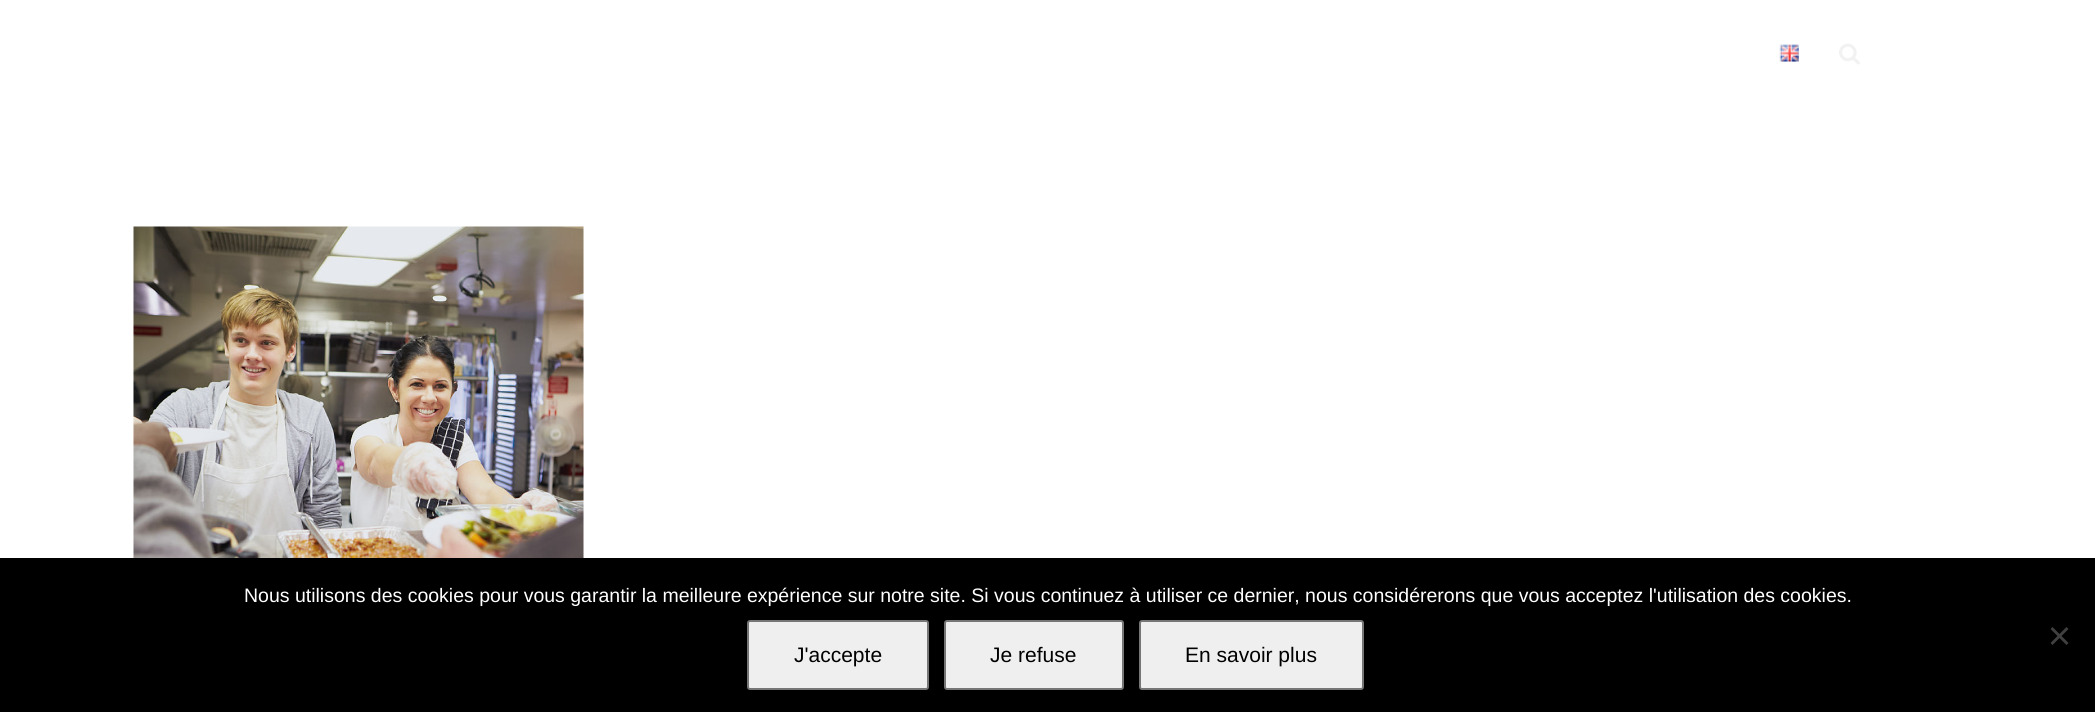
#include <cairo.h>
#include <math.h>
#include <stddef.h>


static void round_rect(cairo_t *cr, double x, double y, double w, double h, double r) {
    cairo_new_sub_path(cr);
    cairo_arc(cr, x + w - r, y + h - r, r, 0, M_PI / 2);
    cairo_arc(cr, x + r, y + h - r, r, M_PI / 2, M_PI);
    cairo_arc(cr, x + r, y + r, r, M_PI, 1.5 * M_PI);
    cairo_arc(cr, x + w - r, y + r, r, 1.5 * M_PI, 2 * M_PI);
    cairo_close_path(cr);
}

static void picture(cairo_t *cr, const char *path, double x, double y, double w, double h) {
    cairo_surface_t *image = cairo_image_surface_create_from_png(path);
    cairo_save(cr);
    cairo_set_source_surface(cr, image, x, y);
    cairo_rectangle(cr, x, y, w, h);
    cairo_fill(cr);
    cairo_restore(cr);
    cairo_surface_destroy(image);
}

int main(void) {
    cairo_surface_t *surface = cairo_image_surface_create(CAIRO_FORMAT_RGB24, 2095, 712);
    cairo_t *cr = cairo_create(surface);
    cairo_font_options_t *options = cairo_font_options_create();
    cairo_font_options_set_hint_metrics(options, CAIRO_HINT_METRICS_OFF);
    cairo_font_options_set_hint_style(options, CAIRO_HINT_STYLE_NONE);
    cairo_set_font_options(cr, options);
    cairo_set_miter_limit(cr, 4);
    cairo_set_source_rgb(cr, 1, 1, 1);
    cairo_paint(cr);
    picture(cr, "img1.png", 1779, 44, 20, 18);
    picture(cr, "img2.png", 1839, 43, 21, 22);
    picture(cr, "img3.png", 133, 226, 451, 332);
    cairo_set_source_rgb(cr, 0, 0, 0);
    cairo_rectangle(cr, 0, 558, 2095, 154);
    cairo_fill(cr);
    cairo_select_font_face(cr, "Liberation Sans", CAIRO_FONT_SLANT_NORMAL, CAIRO_FONT_WEIGHT_NORMAL);
    cairo_set_font_size(cr, 19.5);
    cairo_set_source_rgb(cr, 1, 1, 1);
    cairo_move_to(cr, 244, 602);
    cairo_show_text(cr, "Nous utilisons des cookies pour vous garantir la meilleure expérience sur notre site. Si vous continuez à utiliser ce dernier, nous considérerons que vous acceptez l'utilisation des cookies.");
    cairo_set_source_rgb(cr, 0.251, 0.251, 0.251);
    cairo_new_path(cr);
    cairo_move_to(cr, 2066.5, 627);
    cairo_line_to(cr, 2068.5, 629);
    cairo_line_to(cr, 2052.5, 645);
    cairo_line_to(cr, 2050.5, 643);
    cairo_close_path(cr);
    cairo_fill(cr);
    cairo_new_path(cr);
    cairo_move_to(cr, 2050.5, 629);
    cairo_line_to(cr, 2052.5, 627);
    cairo_line_to(cr, 2068.5, 643);
    cairo_line_to(cr, 2066.5, 645);
    cairo_close_path(cr);
    cairo_fill(cr);
    cairo_set_source_rgb(cr, 0.937, 0.937, 0.937);
    round_rect(cr, 748, 621, 180, 68, 2);
    cairo_fill_preserve(cr);
    cairo_set_source_rgb(cr, 0.463, 0.463, 0.463);
    cairo_stroke(cr);
    cairo_set_font_size(cr, 21);
    cairo_set_source_rgb(cr, 0, 0, 0);
    cairo_move_to(cr, 794, 662);
    cairo_show_text(cr, "J'accepte");
    cairo_set_source_rgb(cr, 0.937, 0.937, 0.937);
    round_rect(cr, 945, 621, 178, 68, 2);
    cairo_fill_preserve(cr);
    cairo_set_source_rgb(cr, 0.463, 0.463, 0.463);
    cairo_stroke(cr);
    cairo_set_source_rgb(cr, 0, 0, 0);
    cairo_move_to(cr, 990, 662);
    cairo_show_text(cr, "Je refuse");
    cairo_set_source_rgb(cr, 0.937, 0.937, 0.937);
    round_rect(cr, 1140, 621, 223, 68, 2);
    cairo_fill_preserve(cr);
    cairo_set_source_rgb(cr, 0.463, 0.463, 0.463);
    cairo_stroke(cr);
    cairo_set_source_rgb(cr, 0, 0, 0);
    cairo_move_to(cr, 1185, 662);
    cairo_show_text(cr, "En savoir plus");
    cairo_surface_write_to_png(surface, "page.png");
    cairo_font_options_destroy(options);
    cairo_destroy(cr);
    cairo_surface_destroy(surface);
    return 0;
}
